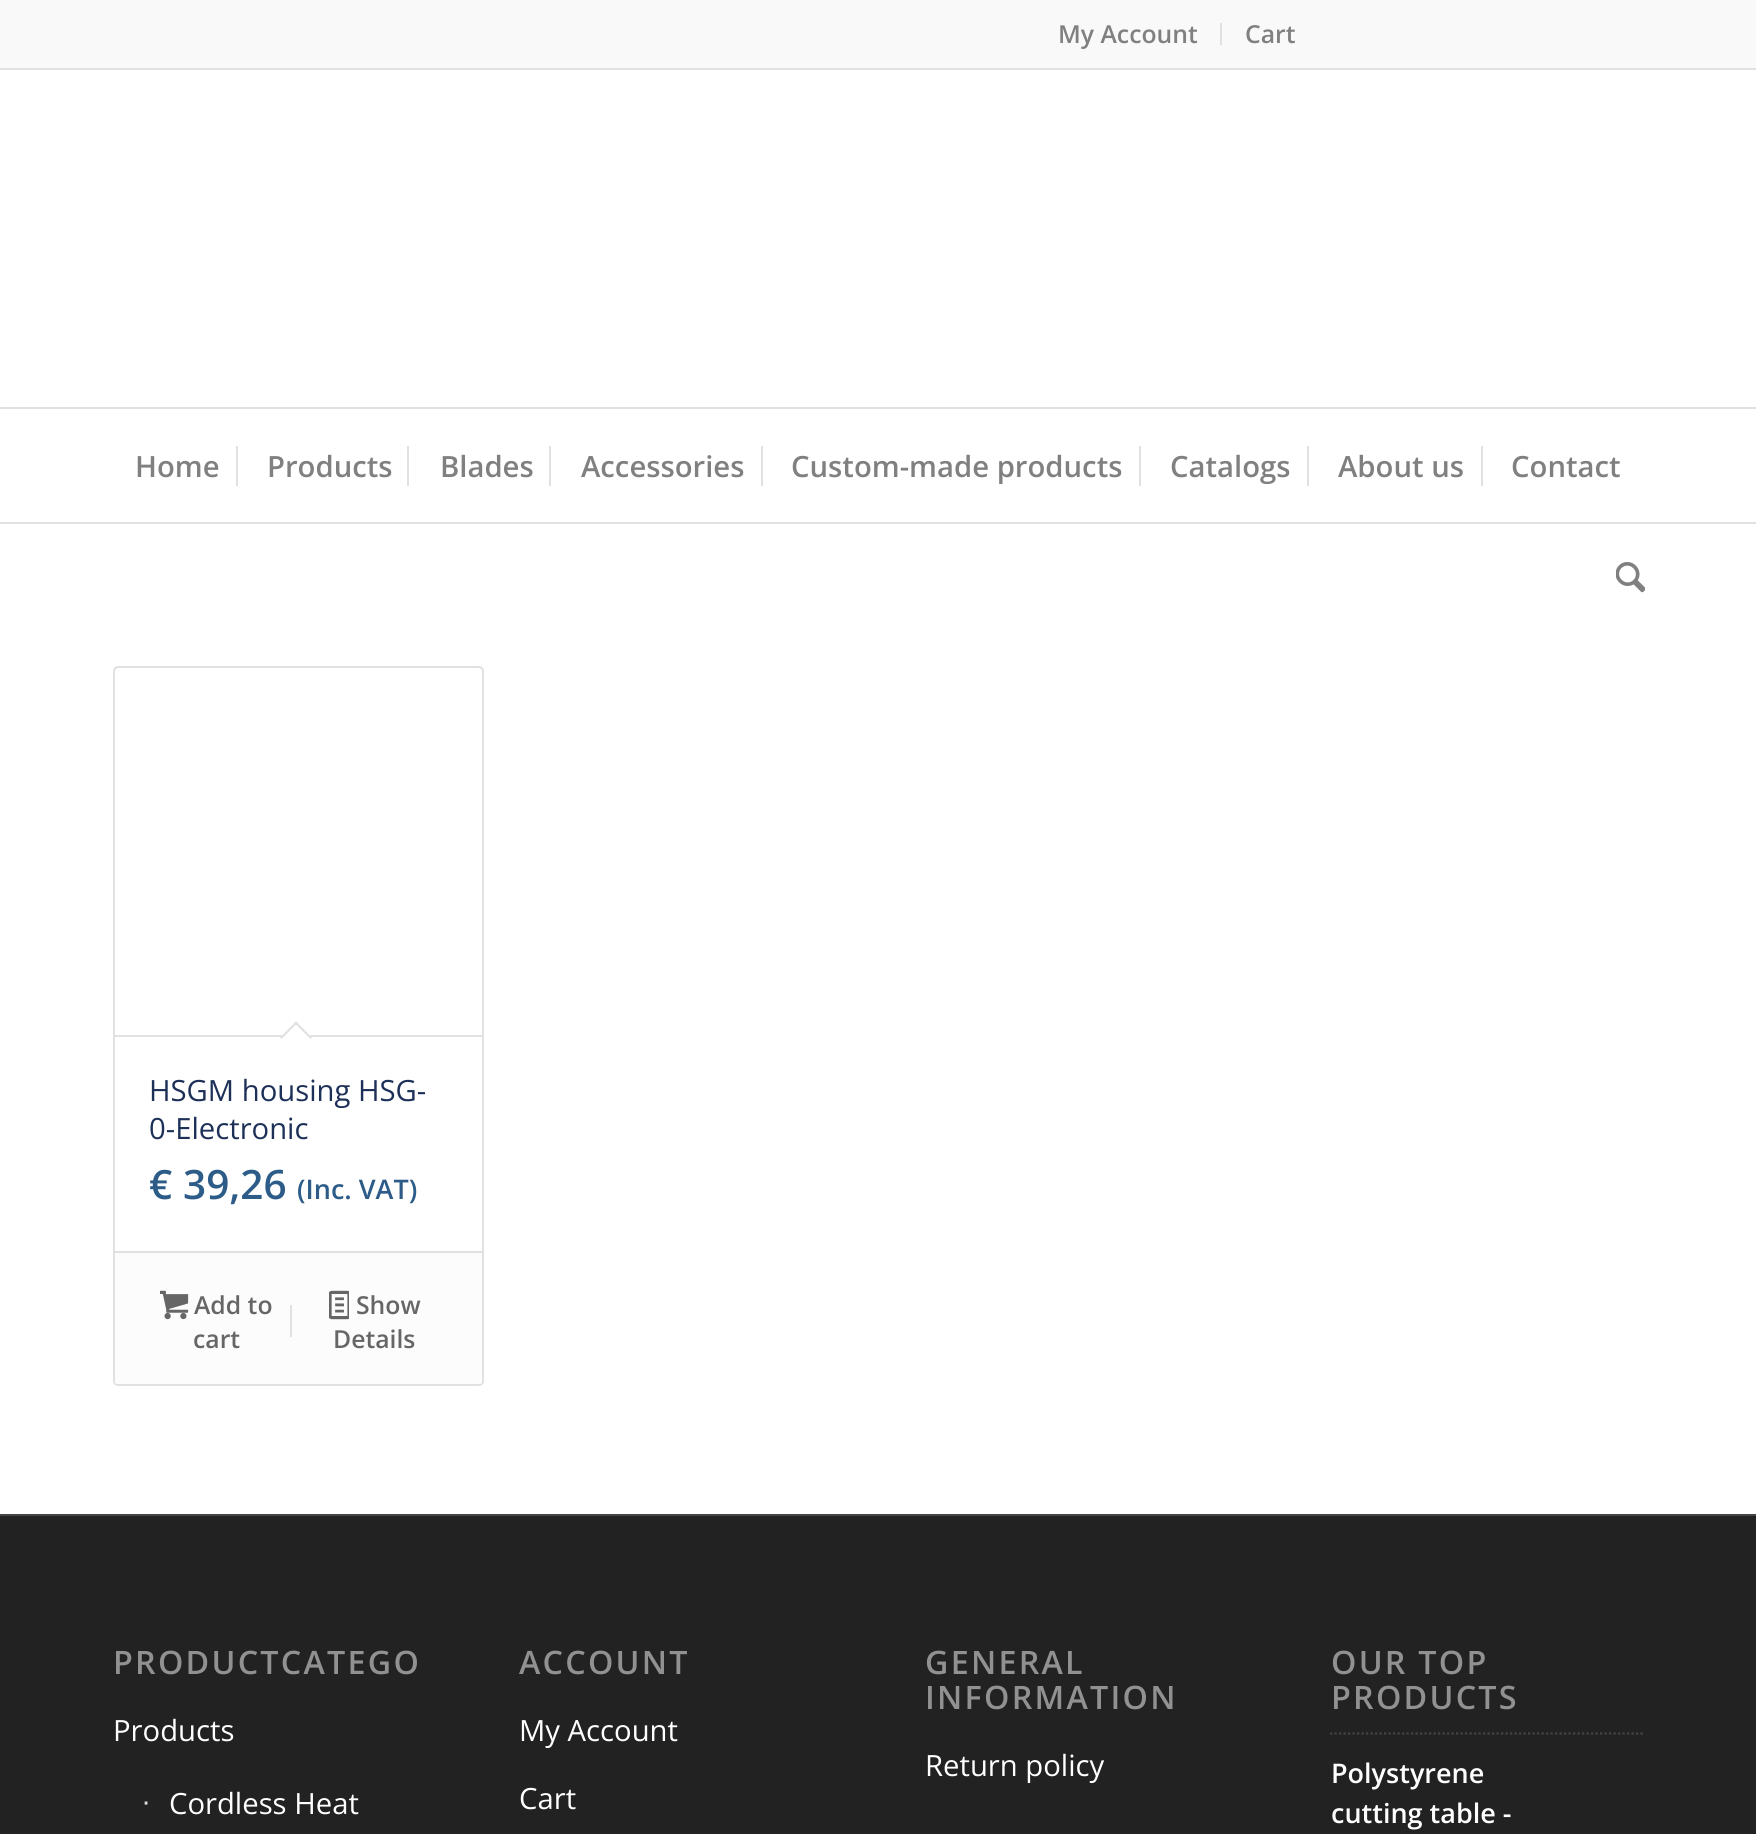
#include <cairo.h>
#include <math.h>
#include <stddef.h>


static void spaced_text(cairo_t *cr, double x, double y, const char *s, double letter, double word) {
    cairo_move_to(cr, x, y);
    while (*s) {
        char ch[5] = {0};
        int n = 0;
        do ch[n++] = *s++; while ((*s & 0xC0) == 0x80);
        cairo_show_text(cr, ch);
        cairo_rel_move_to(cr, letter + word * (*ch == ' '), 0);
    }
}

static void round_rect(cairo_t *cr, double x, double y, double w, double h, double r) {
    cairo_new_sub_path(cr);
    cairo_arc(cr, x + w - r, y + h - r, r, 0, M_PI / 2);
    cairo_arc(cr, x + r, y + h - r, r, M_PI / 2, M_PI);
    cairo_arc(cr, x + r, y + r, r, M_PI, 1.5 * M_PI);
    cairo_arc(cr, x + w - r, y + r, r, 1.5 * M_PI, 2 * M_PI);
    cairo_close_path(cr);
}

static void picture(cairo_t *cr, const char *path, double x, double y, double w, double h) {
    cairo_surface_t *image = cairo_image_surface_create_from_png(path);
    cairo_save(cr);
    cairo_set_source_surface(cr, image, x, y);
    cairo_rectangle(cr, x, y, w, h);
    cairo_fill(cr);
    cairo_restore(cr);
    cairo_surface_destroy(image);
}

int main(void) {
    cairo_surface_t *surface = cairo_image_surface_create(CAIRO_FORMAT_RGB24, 1756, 1834);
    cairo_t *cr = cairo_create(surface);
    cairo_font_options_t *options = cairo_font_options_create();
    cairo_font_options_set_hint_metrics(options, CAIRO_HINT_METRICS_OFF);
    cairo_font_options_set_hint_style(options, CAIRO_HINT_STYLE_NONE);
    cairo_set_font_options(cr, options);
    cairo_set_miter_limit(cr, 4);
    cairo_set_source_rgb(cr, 1, 1, 1);
    cairo_paint(cr);
    cairo_set_source_rgb(cr, 0.973, 0.973, 0.973);
    cairo_rectangle(cr, 0, 0, 1756, 68);
    cairo_fill(cr);
    cairo_set_source_rgb(cr, 0.882, 0.882, 0.882);
    cairo_rectangle(cr, 0, 68, 1756, 2);
    cairo_fill(cr);
    cairo_rectangle(cr, 1220, 23, 2, 22);
    cairo_fill(cr);
    cairo_select_font_face(cr, "Open Sans SemiBold", CAIRO_FONT_SLANT_NORMAL, CAIRO_FONT_WEIGHT_NORMAL);
    cairo_set_font_size(cr, 24.75);
    cairo_set_source_rgb(cr, 0.502, 0.502, 0.502);
    cairo_move_to(cr, 1058, 43);
    cairo_show_text(cr, "My Account");
    cairo_move_to(cr, 1245, 43);
    cairo_show_text(cr, "Cart");
    cairo_set_source_rgb(cr, 0.882, 0.882, 0.882);
    cairo_rectangle(cr, 0, 522, 1756, 2);
    cairo_fill(cr);
    cairo_rectangle(cr, 0, 407, 1756, 2);
    cairo_fill(cr);
    cairo_set_font_size(cr, 29.25);
    cairo_set_source_rgb(cr, 0.502, 0.502, 0.502);
    cairo_move_to(cr, 135, 477);
    cairo_show_text(cr, "Home");
    cairo_move_to(cr, 267, 477);
    cairo_show_text(cr, "Products");
    cairo_set_source_rgb(cr, 0.882, 0.882, 0.882);
    cairo_rectangle(cr, 236, 446, 2, 40);
    cairo_fill(cr);
    cairo_set_source_rgb(cr, 0.502, 0.502, 0.502);
    cairo_move_to(cr, 440, 477);
    cairo_show_text(cr, "Blades");
    cairo_set_source_rgb(cr, 0.882, 0.882, 0.882);
    cairo_rectangle(cr, 407, 446, 2, 40);
    cairo_fill(cr);
    cairo_set_source_rgb(cr, 0.502, 0.502, 0.502);
    cairo_move_to(cr, 581, 477);
    cairo_show_text(cr, "Accessories");
    cairo_set_source_rgb(cr, 0.882, 0.882, 0.882);
    cairo_rectangle(cr, 549, 446, 2, 40);
    cairo_fill(cr);
    cairo_set_source_rgb(cr, 0.502, 0.502, 0.502);
    cairo_move_to(cr, 791, 477);
    cairo_show_text(cr, "Custom-made products");
    cairo_set_source_rgb(cr, 0.882, 0.882, 0.882);
    cairo_rectangle(cr, 761, 446, 2, 40);
    cairo_fill(cr);
    cairo_set_source_rgb(cr, 0.502, 0.502, 0.502);
    cairo_move_to(cr, 1170, 477);
    cairo_show_text(cr, "Catalogs");
    cairo_set_source_rgb(cr, 0.882, 0.882, 0.882);
    cairo_rectangle(cr, 1139, 446, 2, 40);
    cairo_fill(cr);
    cairo_set_source_rgb(cr, 0.502, 0.502, 0.502);
    cairo_move_to(cr, 1338, 477);
    cairo_show_text(cr, "About us");
    cairo_set_source_rgb(cr, 0.882, 0.882, 0.882);
    cairo_rectangle(cr, 1307, 446, 2, 40);
    cairo_fill(cr);
    cairo_set_source_rgb(cr, 0.502, 0.502, 0.502);
    cairo_move_to(cr, 1511, 477);
    cairo_show_text(cr, "Contact");
    cairo_set_source_rgb(cr, 0.882, 0.882, 0.882);
    cairo_rectangle(cr, 1481, 446, 2, 40);
    cairo_fill(cr);
    picture(cr, "img1.png", 1616, 562, 29, 31);
    round_rect(cr, 114, 667, 369, 718, 4);
    cairo_stroke(cr);
    cairo_rectangle(cr, 115, 1035, 367, 2);
    cairo_fill(cr);
    cairo_set_source_rgb(cr, 1, 1, 1);
    cairo_new_path(cr);
    cairo_move_to(cr, 296, 1021.5);
    cairo_line_to(cr, 312, 1037.5);
    cairo_line_to(cr, 296, 1053.5);
    cairo_line_to(cr, 280, 1037.5);
    cairo_close_path(cr);
    cairo_fill(cr);
    cairo_set_source_rgb(cr, 0.882, 0.882, 0.882);
    cairo_new_path(cr);
    cairo_move_to(cr, 296, 1021.5);
    cairo_line_to(cr, 312, 1037.5);
    cairo_line_to(cr, 310.5, 1039);
    cairo_line_to(cr, 294.5, 1023);
    cairo_close_path(cr);
    cairo_fill(cr);
    cairo_new_path(cr);
    cairo_move_to(cr, 296, 1021.5);
    cairo_line_to(cr, 297.5, 1023);
    cairo_line_to(cr, 281.5, 1039);
    cairo_line_to(cr, 280, 1037.5);
    cairo_close_path(cr);
    cairo_fill(cr);
    cairo_select_font_face(cr, "Open Sans", CAIRO_FONT_SLANT_NORMAL, CAIRO_FONT_WEIGHT_NORMAL);
    cairo_set_source_rgb(cr, 0.114, 0.188, 0.345);
    cairo_move_to(cr, 149, 1101);
    cairo_show_text(cr, "HSGM housing HSG-");
    cairo_move_to(cr, 149, 1139);
    cairo_show_text(cr, "0-Electronic");
    cairo_select_font_face(cr, "Open Sans SemiBold", CAIRO_FONT_SLANT_NORMAL, CAIRO_FONT_WEIGHT_NORMAL);
    cairo_set_font_size(cr, 40.5);
    cairo_set_source_rgb(cr, 0.176, 0.361, 0.533);
    cairo_move_to(cr, 149, 1199);
    cairo_show_text(cr, "€");
    cairo_move_to(cr, 183, 1199);
    cairo_show_text(cr, "39,26");
    cairo_set_font_size(cr, 27);
    cairo_move_to(cr, 297, 1199);
    cairo_show_text(cr, "(Inc. VAT)");
    cairo_set_source_rgb(cr, 0.988, 0.988, 0.988);
    cairo_new_path(cr);
    cairo_move_to(cr, 115, 1251);
    cairo_line_to(cr, 482, 1251);
    cairo_line_to(cr, 482, 1382);
    cairo_curve_to(cr, 482, 1383, 481, 1384, 480, 1384);
    cairo_line_to(cr, 117, 1384);
    cairo_curve_to(cr, 116, 1384, 115, 1383, 115, 1382);
    cairo_close_path(cr);
    cairo_fill(cr);
    cairo_set_source_rgb(cr, 0.882, 0.882, 0.882);
    cairo_rectangle(cr, 115, 1251, 367, 2);
    cairo_fill(cr);
    picture(cr, "img2.png", 160, 1290, 29, 30);
    cairo_set_font_size(cr, 24.75);
    cairo_set_source_rgb(cr, 0.4, 0.4, 0.4);
    cairo_move_to(cr, 194, 1314);
    cairo_show_text(cr, "Add to");
    cairo_move_to(cr, 193, 1348);
    cairo_show_text(cr, "cart");
    cairo_set_source_rgb(cr, 0.882, 0.882, 0.882);
    cairo_rectangle(cr, 290, 1305, 2, 32);
    cairo_fill(cr);
    picture(cr, "img3.png", 329, 1290, 20, 30);
    cairo_set_source_rgb(cr, 0.4, 0.4, 0.4);
    cairo_move_to(cr, 356, 1314);
    cairo_show_text(cr, "Show");
    cairo_move_to(cr, 333, 1348);
    cairo_show_text(cr, "Details");
    cairo_set_source_rgb(cr, 0.133, 0.133, 0.133);
    cairo_rectangle(cr, 0, 1516, 1756, 318);
    cairo_fill(cr);
    cairo_set_source_rgb(cr, 0.267, 0.267, 0.267);
    cairo_rectangle(cr, 0, 1514, 1756, 2);
    cairo_fill(cr);
    cairo_set_font_size(cr, 32.25);
    cairo_set_source_rgb(cr, 0.569, 0.569, 0.569);
    spaced_text(cr, 113, 1674, "PRODUCTCATEGO", 2.25, 0);
    cairo_select_font_face(cr, "Open Sans", CAIRO_FONT_SLANT_NORMAL, CAIRO_FONT_WEIGHT_NORMAL);
    cairo_set_font_size(cr, 29.25);
    cairo_set_source_rgb(cr, 1, 1, 1);
    cairo_move_to(cr, 113, 1741);
    cairo_show_text(cr, "Products");
    cairo_select_font_face(cr, "Liberation Sans", CAIRO_FONT_SLANT_NORMAL, CAIRO_FONT_WEIGHT_NORMAL);
    cairo_set_source_rgb(cr, 0.867, 0.867, 0.867);
    cairo_move_to(cr, 142, 1811);
    cairo_show_text(cr, "∙");
    cairo_select_font_face(cr, "Open Sans", CAIRO_FONT_SLANT_NORMAL, CAIRO_FONT_WEIGHT_NORMAL);
    cairo_set_source_rgb(cr, 1, 1, 1);
    cairo_move_to(cr, 169, 1814);
    cairo_show_text(cr, "Cordless Heat");
    cairo_select_font_face(cr, "Open Sans SemiBold", CAIRO_FONT_SLANT_NORMAL, CAIRO_FONT_WEIGHT_NORMAL);
    cairo_set_font_size(cr, 32.25);
    cairo_set_source_rgb(cr, 0.569, 0.569, 0.569);
    spaced_text(cr, 519, 1674, "ACCOUNT", 2.25, 0);
    cairo_select_font_face(cr, "Open Sans", CAIRO_FONT_SLANT_NORMAL, CAIRO_FONT_WEIGHT_NORMAL);
    cairo_set_font_size(cr, 29.25);
    cairo_set_source_rgb(cr, 1, 1, 1);
    cairo_move_to(cr, 519, 1741);
    cairo_show_text(cr, "My Account");
    cairo_move_to(cr, 519, 1809);
    cairo_show_text(cr, "Cart");
    cairo_select_font_face(cr, "Open Sans SemiBold", CAIRO_FONT_SLANT_NORMAL, CAIRO_FONT_WEIGHT_NORMAL);
    cairo_set_font_size(cr, 32.25);
    cairo_set_source_rgb(cr, 0.569, 0.569, 0.569);
    spaced_text(cr, 925, 1674, "GENERAL", 2.25, 0);
    spaced_text(cr, 925, 1709, "INFORMATION", 2.25, 0);
    cairo_select_font_face(cr, "Open Sans", CAIRO_FONT_SLANT_NORMAL, CAIRO_FONT_WEIGHT_NORMAL);
    cairo_set_font_size(cr, 29.25);
    cairo_set_source_rgb(cr, 1, 1, 1);
    cairo_move_to(cr, 925, 1776);
    cairo_show_text(cr, "Return policy");
    cairo_select_font_face(cr, "Open Sans SemiBold", CAIRO_FONT_SLANT_NORMAL, CAIRO_FONT_WEIGHT_NORMAL);
    cairo_set_font_size(cr, 32.25);
    cairo_set_source_rgb(cr, 0.569, 0.569, 0.569);
    spaced_text(cr, 1331, 1674, "OUR TOP", 2.25, 0);
    spaced_text(cr, 1331, 1709, "PRODUCTS", 2.25, 0);
    cairo_new_path(cr);
    cairo_move_to(cr, 1330, 1733.5);
    cairo_line_to(cr, 1645, 1733.5);
    cairo_set_source_rgb(cr, 0.267, 0.267, 0.267);
    cairo_set_line_width(cr, 2.2);
    cairo_set_dash(cr, (double[]){2.25, 2.25}, 2, 0);
    cairo_stroke(cr);
    cairo_set_font_size(cr, 27);
    cairo_set_source_rgb(cr, 1, 1, 1);
    cairo_move_to(cr, 1331, 1783);
    cairo_show_text(cr, "Polystyrene");
    cairo_move_to(cr, 1331, 1823);
    cairo_show_text(cr, "cutting table -");
    cairo_surface_write_to_png(surface, "page.png");
    cairo_font_options_destroy(options);
    cairo_destroy(cr);
    cairo_surface_destroy(surface);
    return 0;
}
